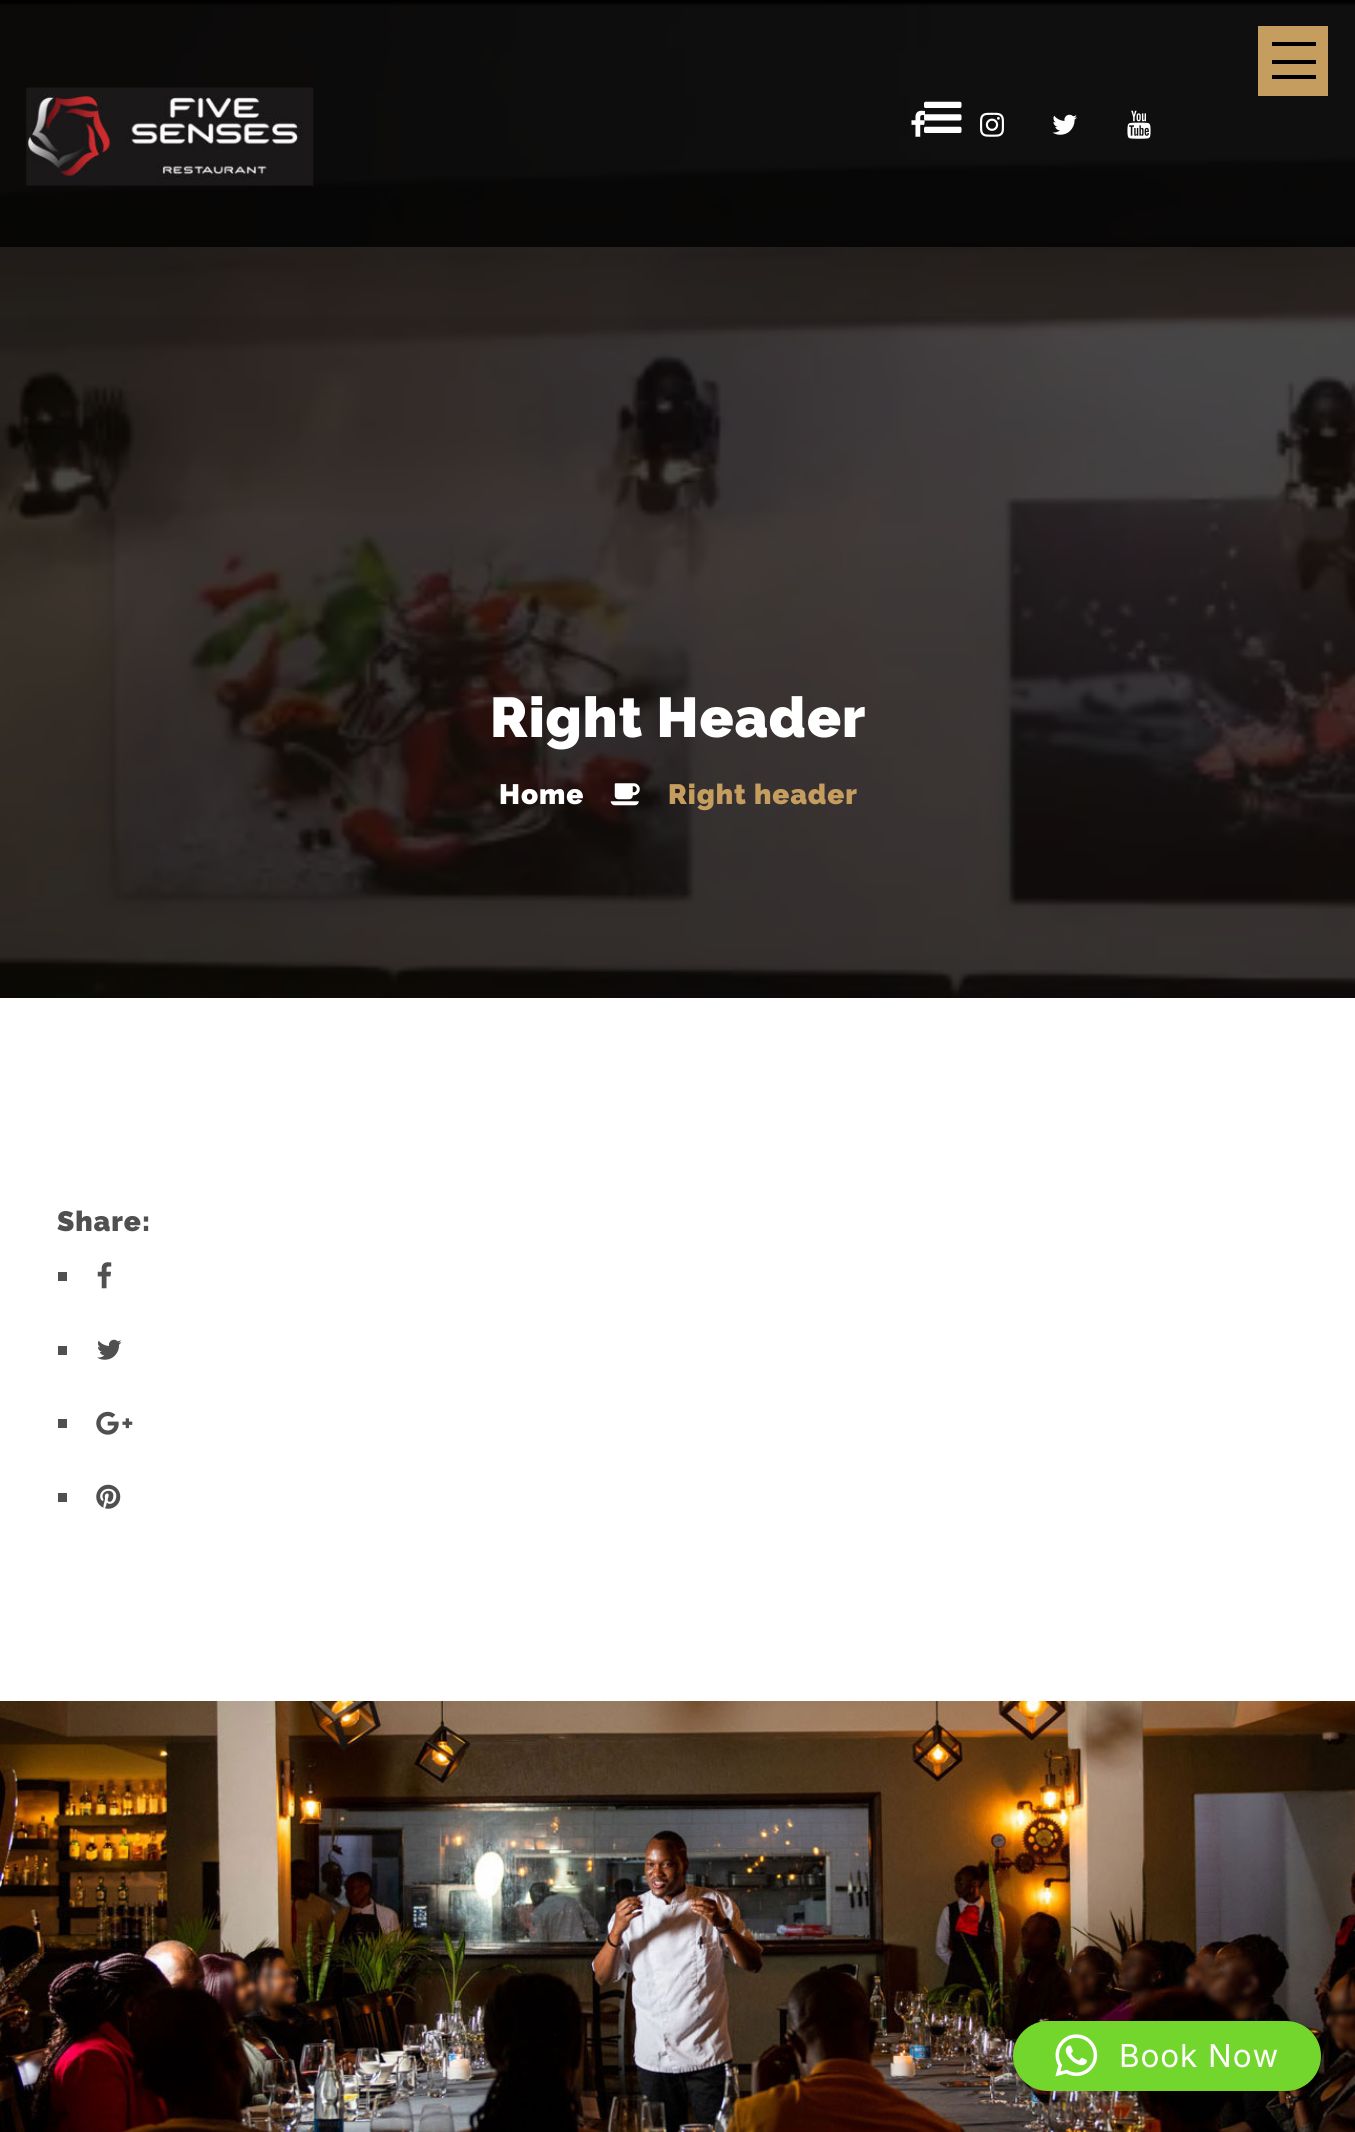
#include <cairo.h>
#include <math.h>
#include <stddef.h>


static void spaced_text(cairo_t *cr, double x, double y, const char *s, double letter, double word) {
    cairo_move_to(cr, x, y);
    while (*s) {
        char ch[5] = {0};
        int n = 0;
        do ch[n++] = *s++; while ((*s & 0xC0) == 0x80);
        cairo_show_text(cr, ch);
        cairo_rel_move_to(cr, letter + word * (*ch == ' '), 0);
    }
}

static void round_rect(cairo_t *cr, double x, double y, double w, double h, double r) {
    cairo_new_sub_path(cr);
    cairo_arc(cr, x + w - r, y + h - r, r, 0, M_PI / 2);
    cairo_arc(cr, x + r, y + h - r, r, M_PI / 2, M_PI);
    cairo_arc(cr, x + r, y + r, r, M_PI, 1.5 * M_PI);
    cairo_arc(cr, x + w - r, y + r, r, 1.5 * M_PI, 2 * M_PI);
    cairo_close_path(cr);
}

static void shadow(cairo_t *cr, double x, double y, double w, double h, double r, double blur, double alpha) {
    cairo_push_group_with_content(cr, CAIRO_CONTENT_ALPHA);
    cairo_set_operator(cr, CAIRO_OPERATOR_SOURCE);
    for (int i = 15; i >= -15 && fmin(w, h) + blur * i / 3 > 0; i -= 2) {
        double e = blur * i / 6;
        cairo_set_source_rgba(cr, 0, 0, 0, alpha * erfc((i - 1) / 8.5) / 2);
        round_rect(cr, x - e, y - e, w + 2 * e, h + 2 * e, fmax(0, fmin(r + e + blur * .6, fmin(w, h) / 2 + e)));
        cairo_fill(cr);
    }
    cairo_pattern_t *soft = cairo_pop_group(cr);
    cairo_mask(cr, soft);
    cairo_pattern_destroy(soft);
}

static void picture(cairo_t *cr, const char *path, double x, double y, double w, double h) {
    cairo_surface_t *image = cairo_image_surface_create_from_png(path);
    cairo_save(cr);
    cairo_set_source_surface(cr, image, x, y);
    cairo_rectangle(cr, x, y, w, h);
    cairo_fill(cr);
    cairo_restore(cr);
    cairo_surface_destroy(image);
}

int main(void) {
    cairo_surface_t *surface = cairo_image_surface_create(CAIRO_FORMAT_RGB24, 1355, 2132);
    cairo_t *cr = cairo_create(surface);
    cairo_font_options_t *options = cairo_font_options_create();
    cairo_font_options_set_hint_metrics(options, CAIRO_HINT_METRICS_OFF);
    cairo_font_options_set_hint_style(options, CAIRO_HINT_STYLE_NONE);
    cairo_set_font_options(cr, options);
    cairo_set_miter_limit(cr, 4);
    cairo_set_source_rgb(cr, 1, 1, 1);
    cairo_paint(cr);
    picture(cr, "img7.png", 0, 0, 1355, 998);
    cairo_set_source_rgba(cr, 0, 0, 0, 0.8);
    cairo_rectangle(cr, 0, 0, 1355, 247);
    cairo_fill(cr);
    picture(cr, "img1.png", 26, 87, 288, 99);
    picture(cr, "img2.png", 924, 101, 38, 32);
    picture(cr, "img3.png", 911, 110, 14, 27);
    picture(cr, "img4.png", 980, 112, 24, 25);
    picture(cr, "img5.png", 1052, 114, 25, 21);
    picture(cr, "img6.png", 1127, 110, 24, 29);
    cairo_set_source_rgba(cr, 0, 0, 0, 0.05);
    cairo_rectangle(cr, 0, 316, 1355, 661);
    cairo_fill(cr);
    cairo_select_font_face(cr, "Raleway Black", CAIRO_FONT_SLANT_NORMAL, CAIRO_FONT_WEIGHT_NORMAL);
    cairo_set_font_size(cr, 56);
    cairo_set_source_rgb(cr, 1, 1, 1);
    spaced_text(cr, 490, 737, "Right Header", 0.9, 0);
    cairo_set_font_size(cr, 28);
    spaced_text(cr, 499, 804, "Home", 0.9, 0);
    picture(cr, "img8.png", 610, 783, 30, 23);
    cairo_set_source_rgb(cr, 0.773, 0.616, 0.373);
    spaced_text(cr, 668, 804, "Right header", 0.9, 0);
    cairo_rectangle(cr, 1258, 26, 70, 70);
    cairo_fill(cr);
    cairo_set_source_rgb(cr, 0, 0, 0);
    cairo_rectangle(cr, 1272, 42, 44, 4);
    cairo_fill(cr);
    cairo_rectangle(cr, 1272, 60, 44, 4);
    cairo_fill(cr);
    cairo_rectangle(cr, 1272, 75, 44, 4);
    cairo_fill(cr);
    cairo_set_source_rgb(cr, 0.314, 0.314, 0.314);
    spaced_text(cr, 57, 1231, "Share:", 0.9, 0);
    cairo_rectangle(cr, 58, 1272, 9, 9);
    cairo_fill(cr);
    picture(cr, "img9.png", 97, 1262, 15, 27);
    cairo_rectangle(cr, 58, 1346, 9, 9);
    cairo_fill(cr);
    picture(cr, "img10.png", 97, 1339, 25, 21);
    cairo_rectangle(cr, 58, 1419, 9, 9);
    cairo_fill(cr);
    picture(cr, "img11.png", 96, 1411, 37, 24);
    cairo_rectangle(cr, 58, 1493, 9, 9);
    cairo_fill(cr);
    picture(cr, "img12.png", 96, 1484, 25, 25);
    picture(cr, "img13.png", 0, 1701, 1355, 431);
    cairo_set_source_rgb(cr, 0, 0, 0);
    shadow(cr, 1013, 2025, 308, 70, 35, 28, 0.16);
    shadow(cr, 1013, 2023, 308, 70, 35, 5, 0.06);
    cairo_set_source_rgb(cr, 0.451, 0.839, 0.173);
    round_rect(cr, 1013, 2021, 308, 70, 35);
    cairo_fill(cr);
    picture(cr, "img14.png", 1055, 2034, 43, 43);
    cairo_select_font_face(cr, "Inter", CAIRO_FONT_SLANT_NORMAL, CAIRO_FONT_WEIGHT_NORMAL);
    cairo_set_font_size(cr, 31.5);
    cairo_set_source_rgb(cr, 1, 1, 1);
    spaced_text(cr, 1119, 2067, "Book Now", 0.9, 0);
    cairo_surface_write_to_png(surface, "page.png");
    cairo_font_options_destroy(options);
    cairo_destroy(cr);
    cairo_surface_destroy(surface);
    return 0;
}
